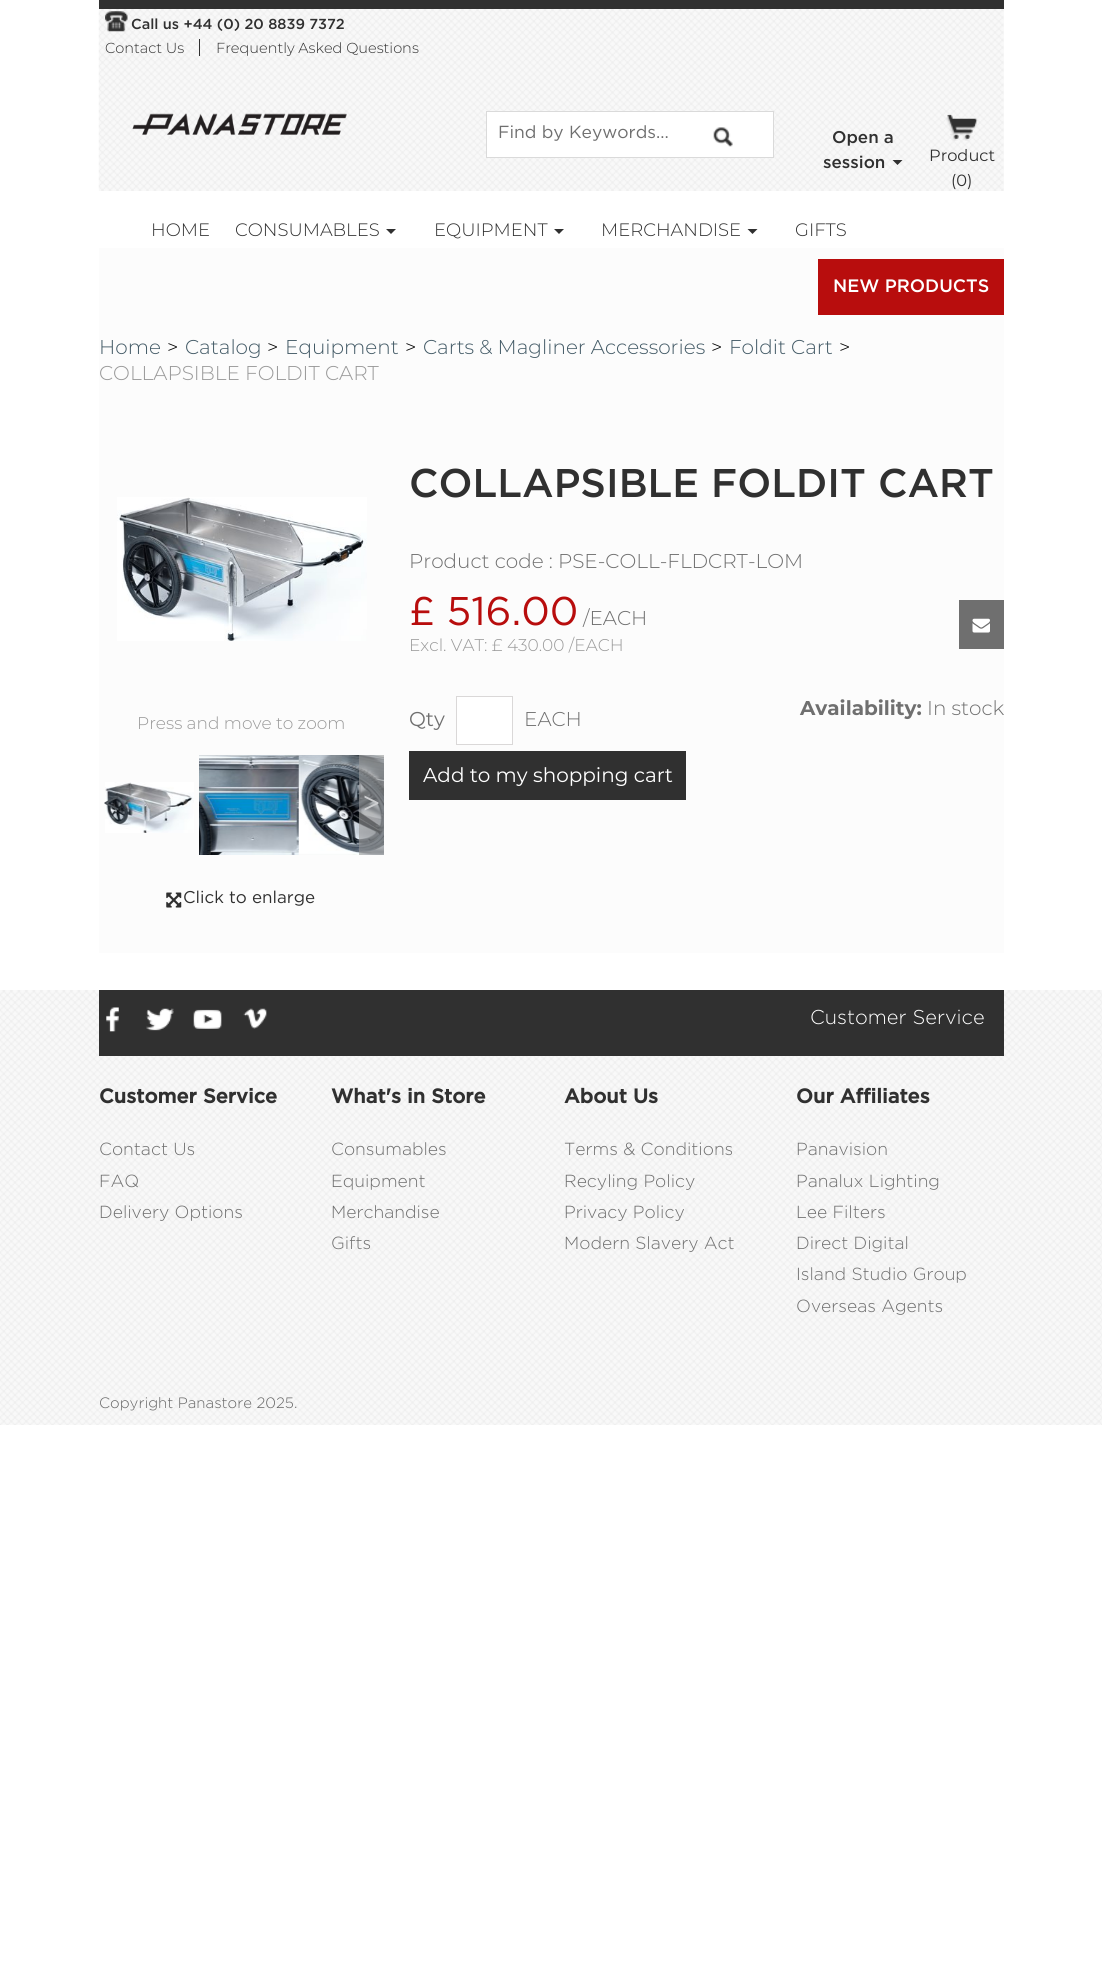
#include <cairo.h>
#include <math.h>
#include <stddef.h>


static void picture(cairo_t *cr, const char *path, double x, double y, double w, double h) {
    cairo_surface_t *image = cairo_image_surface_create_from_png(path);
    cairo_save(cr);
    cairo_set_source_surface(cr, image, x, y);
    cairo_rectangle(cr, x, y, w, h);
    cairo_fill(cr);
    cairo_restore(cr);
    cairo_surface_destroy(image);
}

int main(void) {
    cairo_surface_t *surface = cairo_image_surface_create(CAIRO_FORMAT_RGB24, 1102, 1980);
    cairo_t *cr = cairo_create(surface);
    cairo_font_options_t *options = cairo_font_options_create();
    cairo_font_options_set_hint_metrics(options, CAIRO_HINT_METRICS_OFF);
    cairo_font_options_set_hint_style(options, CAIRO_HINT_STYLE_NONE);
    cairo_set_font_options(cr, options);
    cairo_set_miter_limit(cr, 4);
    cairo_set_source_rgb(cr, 1, 1, 1);
    cairo_paint(cr);
    picture(cr, "img1.png", 98, 0, 906, 191);
    cairo_set_source_rgb(cr, 0.188, 0.188, 0.188);
    cairo_rectangle(cr, 99, 0, 905, 9);
    cairo_fill(cr);
    picture(cr, "img2.png", 105, 11, 23, 21);
    cairo_select_font_face(cr, "Gotham Medium", CAIRO_FONT_SLANT_NORMAL, CAIRO_FONT_WEIGHT_NORMAL);
    cairo_set_font_size(cr, 14.5);
    cairo_move_to(cr, 131, 29);
    cairo_show_text(cr, "Call us +44 (0) 20 8839 7372");
    cairo_select_font_face(cr, "Montserrat Light", CAIRO_FONT_SLANT_NORMAL, CAIRO_FONT_WEIGHT_NORMAL);
    cairo_move_to(cr, 105, 53);
    cairo_show_text(cr, "Contact Us");
    cairo_rectangle(cr, 199, 39, 1, 17);
    cairo_fill(cr);
    cairo_move_to(cr, 216, 53);
    cairo_show_text(cr, "Frequently Asked Questions");
    picture(cr, "img3.png", 132, 113, 215, 22);
    cairo_set_source_rgb(cr, 1, 1, 1);
    cairo_rectangle(cr, 486.5, 111.5, 287, 46);
    cairo_fill_preserve(cr);
    cairo_set_source_rgb(cr, 0.855, 0.855, 0.855);
    cairo_set_line_width(cr, 1);
    cairo_stroke(cr);
    cairo_select_font_face(cr, "Gotham", CAIRO_FONT_SLANT_NORMAL, CAIRO_FONT_WEIGHT_NORMAL);
    cairo_set_font_size(cr, 17.5);
    cairo_set_source_rgb(cr, 0.435, 0.435, 0.435);
    cairo_move_to(cr, 498, 138);
    cairo_show_text(cr, "Find by Keywords...");
    picture(cr, "img4.png", 713, 127, 20, 20);
    cairo_select_font_face(cr, "Gotham Medium", CAIRO_FONT_SLANT_NORMAL, CAIRO_FONT_WEIGHT_NORMAL);
    cairo_set_font_size(cr, 17);
    cairo_set_source_rgb(cr, 0.188, 0.188, 0.188);
    cairo_move_to(cr, 832, 143);
    cairo_show_text(cr, "Open a");
    cairo_move_to(cr, 823, 168);
    cairo_show_text(cr, "session");
    cairo_new_path(cr);
    cairo_move_to(cr, 892.5, 160);
    cairo_line_to(cr, 902.5, 160);
    cairo_line_to(cr, 897.5, 165);
    cairo_close_path(cr);
    cairo_fill(cr);
    picture(cr, "img5.png", 946, 114, 32, 27);
    cairo_select_font_face(cr, "Montserrat", CAIRO_FONT_SLANT_NORMAL, CAIRO_FONT_WEIGHT_NORMAL);
    cairo_set_font_size(cr, 16.25);
    cairo_move_to(cr, 929, 161);
    cairo_show_text(cr, "Product");
    cairo_move_to(cr, 951, 186);
    cairo_show_text(cr, "(0)");
    cairo_select_font_face(cr, "Montserrat Light", CAIRO_FONT_SLANT_NORMAL, CAIRO_FONT_WEIGHT_NORMAL);
    cairo_set_font_size(cr, 18);
    cairo_move_to(cr, 151, 236);
    cairo_show_text(cr, "HOME");
    cairo_move_to(cr, 235, 236);
    cairo_show_text(cr, "CONSUMABLES");
    cairo_new_path(cr);
    cairo_move_to(cr, 386, 229);
    cairo_line_to(cr, 396, 229);
    cairo_line_to(cr, 391, 234);
    cairo_close_path(cr);
    cairo_fill(cr);
    cairo_move_to(cr, 434, 236);
    cairo_show_text(cr, "EQUIPMENT");
    cairo_new_path(cr);
    cairo_move_to(cr, 554, 229);
    cairo_line_to(cr, 564, 229);
    cairo_line_to(cr, 559, 234);
    cairo_close_path(cr);
    cairo_fill(cr);
    cairo_move_to(cr, 601, 236);
    cairo_show_text(cr, "MERCHANDISE");
    cairo_new_path(cr);
    cairo_move_to(cr, 747.5, 229);
    cairo_line_to(cr, 757.5, 229);
    cairo_line_to(cr, 752.5, 234);
    cairo_close_path(cr);
    cairo_fill(cr);
    cairo_move_to(cr, 795, 236);
    cairo_show_text(cr, "GIFTS");
    cairo_set_source_rgb(cr, 0.988, 0.988, 0.988);
    cairo_rectangle(cr, 99, 248, 905, 705);
    cairo_fill(cr);
    cairo_set_source_rgb(cr, 0.722, 0.051, 0.051);
    cairo_rectangle(cr, 818, 259, 186, 56);
    cairo_fill(cr);
    cairo_select_font_face(cr, "Gotham Medium", CAIRO_FONT_SLANT_NORMAL, CAIRO_FONT_WEIGHT_NORMAL);
    cairo_set_source_rgb(cr, 1, 1, 1);
    cairo_move_to(cr, 833, 292);
    cairo_show_text(cr, "NEW PRODUCTS");
    cairo_select_font_face(cr, "Montserrat Light", CAIRO_FONT_SLANT_NORMAL, CAIRO_FONT_WEIGHT_NORMAL);
    cairo_set_font_size(cr, 20);
    cairo_set_source_rgb(cr, 0.263, 0.353, 0.4);
    cairo_move_to(cr, 99, 354);
    cairo_show_text(cr, "Home");
    cairo_set_source_rgb(cr, 0, 0, 0);
    cairo_move_to(cr, 167, 354);
    cairo_show_text(cr, ">");
    cairo_set_source_rgb(cr, 0.263, 0.353, 0.4);
    cairo_move_to(cr, 185, 354);
    cairo_show_text(cr, "Catalog");
    cairo_set_source_rgb(cr, 0, 0, 0);
    cairo_move_to(cr, 267, 354);
    cairo_show_text(cr, ">");
    cairo_set_source_rgb(cr, 0.263, 0.353, 0.4);
    cairo_move_to(cr, 285, 354);
    cairo_show_text(cr, "Equipment");
    cairo_set_source_rgb(cr, 0, 0, 0);
    cairo_move_to(cr, 405, 354);
    cairo_show_text(cr, ">");
    cairo_set_source_rgb(cr, 0.263, 0.353, 0.4);
    cairo_move_to(cr, 423, 354);
    cairo_show_text(cr, "Carts & Magliner Accessories");
    cairo_set_source_rgb(cr, 0, 0, 0);
    cairo_move_to(cr, 711, 354);
    cairo_show_text(cr, ">");
    cairo_set_source_rgb(cr, 0.263, 0.353, 0.4);
    cairo_move_to(cr, 729, 354);
    cairo_show_text(cr, "Foldit Cart");
    cairo_set_source_rgb(cr, 0, 0, 0);
    cairo_move_to(cr, 839, 354);
    cairo_show_text(cr, ">");
    cairo_set_source_rgb(cr, 0.6, 0.6, 0.6);
    cairo_move_to(cr, 99, 380);
    cairo_show_text(cr, "COLLAPSIBLE FOLDIT CART");
    cairo_select_font_face(cr, "Gotham Medium", CAIRO_FONT_SLANT_NORMAL, CAIRO_FONT_WEIGHT_NORMAL);
    cairo_set_font_size(cr, 40);
    cairo_set_source_rgb(cr, 0.188, 0.188, 0.188);
    cairo_move_to(cr, 409, 497);
    cairo_show_text(cr, "COLLAPSIBLE FOLDIT CART");
    cairo_select_font_face(cr, "Montserrat Light", CAIRO_FONT_SLANT_NORMAL, CAIRO_FONT_WEIGHT_NORMAL);
    cairo_set_font_size(cr, 20);
    cairo_set_source_rgb(cr, 0.435, 0.435, 0.435);
    cairo_move_to(cr, 409, 568);
    cairo_show_text(cr, "Product code : PSE-COLL-FLDCRT-LOM");
    cairo_select_font_face(cr, "Gotham", CAIRO_FONT_SLANT_NORMAL, CAIRO_FONT_WEIGHT_NORMAL);
    cairo_set_font_size(cr, 40);
    cairo_set_source_rgb(cr, 0.722, 0.051, 0.051);
    cairo_move_to(cr, 409, 625);
    cairo_show_text(cr, "£ 516.00");
    cairo_select_font_face(cr, "Montserrat Light", CAIRO_FONT_SLANT_NORMAL, CAIRO_FONT_WEIGHT_NORMAL);
    cairo_set_font_size(cr, 20);
    cairo_set_source_rgb(cr, 0.435, 0.435, 0.435);
    cairo_move_to(cr, 583, 625);
    cairo_show_text(cr, "/EACH");
    cairo_set_font_size(cr, 17);
    cairo_set_source_rgb(cr, 0.6, 0.6, 0.6);
    cairo_move_to(cr, 409, 651);
    cairo_show_text(cr, "Excl. VAT: £ 430.00 /EACH");
    cairo_set_source_rgb(cr, 0.435, 0.435, 0.435);
    cairo_rectangle(cr, 959, 600, 45, 49);
    cairo_fill(cr);
    picture(cr, "img6.png", 972, 618, 18, 15);
    cairo_select_font_face(cr, "Montserrat", CAIRO_FONT_SLANT_NORMAL, CAIRO_FONT_WEIGHT_BOLD);
    cairo_set_font_size(cr, 20);
    cairo_move_to(cr, 800, 715);
    cairo_show_text(cr, "Availability:");
    cairo_select_font_face(cr, "Montserrat Light", CAIRO_FONT_SLANT_NORMAL, CAIRO_FONT_WEIGHT_NORMAL);
    cairo_move_to(cr, 927, 715);
    cairo_show_text(cr, "In stock");
    cairo_select_font_face(cr, "Montserrat", CAIRO_FONT_SLANT_NORMAL, CAIRO_FONT_WEIGHT_NORMAL);
    cairo_move_to(cr, 409, 726);
    cairo_show_text(cr, "Qty");
    cairo_set_source_rgb(cr, 1, 1, 1);
    cairo_rectangle(cr, 456.5, 696.5, 56, 48);
    cairo_fill_preserve(cr);
    cairo_set_source_rgb(cr, 0.855, 0.847, 0.847);
    cairo_stroke(cr);
    cairo_select_font_face(cr, "Montserrat Light", CAIRO_FONT_SLANT_NORMAL, CAIRO_FONT_WEIGHT_NORMAL);
    cairo_set_source_rgb(cr, 0.435, 0.435, 0.435);
    cairo_move_to(cr, 524, 726);
    cairo_show_text(cr, "EACH");
    cairo_set_source_rgb(cr, 0.188, 0.188, 0.188);
    cairo_rectangle(cr, 409, 751, 277, 49);
    cairo_fill(cr);
    cairo_select_font_face(cr, "Montserrat", CAIRO_FONT_SLANT_NORMAL, CAIRO_FONT_WEIGHT_NORMAL);
    cairo_set_source_rgb(cr, 1, 1, 1);
    cairo_move_to(cr, 423, 782);
    cairo_show_text(cr, "Add to my shopping cart");
    picture(cr, "img7.png", 117, 497, 250, 144);
    cairo_select_font_face(cr, "Montserrat Light", CAIRO_FONT_SLANT_NORMAL, CAIRO_FONT_WEIGHT_NORMAL);
    cairo_set_font_size(cr, 17);
    cairo_set_source_rgb(cr, 0.6, 0.6, 0.6);
    cairo_move_to(cr, 137, 729);
    cairo_show_text(cr, "Press and move to zoom");
    picture(cr, "img8.png", 105, 782, 89, 51);
    picture(cr, "img9.png", 199, 755, 100, 100);
    picture(cr, "img10.png", 298, 755, 86, 100);
    cairo_select_font_face(cr, "Liberation Serif", CAIRO_FONT_SLANT_NORMAL, CAIRO_FONT_WEIGHT_BOLD);
    cairo_set_font_size(cr, 30);
    cairo_set_source_rgb(cr, 0.302, 0.325, 0.349);
    cairo_move_to(cr, 103, 813);
    cairo_show_text(cr, "<");
    cairo_set_source_rgba(cr, 0.6, 0.6, 0.6, 0.6);
    cairo_rectangle(cr, 359, 755, 25, 100);
    cairo_fill(cr);
    cairo_set_source_rgb(cr, 0.808, 0.812, 0.82);
    cairo_move_to(cr, 363, 813);
    cairo_show_text(cr, ">");
    picture(cr, "img11.png", 166, 892, 16, 16);
    cairo_select_font_face(cr, "Gotham", CAIRO_FONT_SLANT_NORMAL, CAIRO_FONT_WEIGHT_NORMAL);
    cairo_set_font_size(cr, 17);
    cairo_set_source_rgb(cr, 0.188, 0.188, 0.188);
    cairo_move_to(cr, 183, 903);
    cairo_show_text(cr, "Click to enlarge");
    picture(cr, "img12.png", 0, 990, 1102, 435);
    cairo_rectangle(cr, 99, 990, 905, 66);
    cairo_fill(cr);
    picture(cr, "img13.png", 106, 1007, 13, 25);
    picture(cr, "img14.png", 146, 1008, 28, 23);
    picture(cr, "img15.png", 193, 1009, 29, 20);
    picture(cr, "img16.png", 243, 1008, 24, 21);
    cairo_select_font_face(cr, "Gotham Light", CAIRO_FONT_SLANT_NORMAL, CAIRO_FONT_WEIGHT_NORMAL);
    cairo_set_font_size(cr, 20);
    cairo_set_source_rgb(cr, 1, 1, 1);
    cairo_move_to(cr, 810, 1024);
    cairo_show_text(cr, "Customer Service");
    cairo_select_font_face(cr, "Gotham", CAIRO_FONT_SLANT_NORMAL, CAIRO_FONT_WEIGHT_BOLD);
    cairo_set_source_rgb(cr, 0.188, 0.188, 0.188);
    cairo_move_to(cr, 99, 1103);
    cairo_show_text(cr, "Customer Service");
    cairo_select_font_face(cr, "Gotham Light", CAIRO_FONT_SLANT_NORMAL, CAIRO_FONT_WEIGHT_NORMAL);
    cairo_set_font_size(cr, 17.5);
    cairo_set_source_rgb(cr, 0.435, 0.435, 0.435);
    cairo_move_to(cr, 99, 1155);
    cairo_show_text(cr, "Contact Us");
    cairo_move_to(cr, 99, 1187);
    cairo_show_text(cr, "FAQ");
    cairo_move_to(cr, 99, 1218);
    cairo_show_text(cr, "Delivery Options");
    cairo_select_font_face(cr, "Gotham", CAIRO_FONT_SLANT_NORMAL, CAIRO_FONT_WEIGHT_BOLD);
    cairo_set_font_size(cr, 20);
    cairo_set_source_rgb(cr, 0.188, 0.188, 0.188);
    cairo_move_to(cr, 331, 1103);
    cairo_show_text(cr, "What's in Store");
    cairo_select_font_face(cr, "Gotham Light", CAIRO_FONT_SLANT_NORMAL, CAIRO_FONT_WEIGHT_NORMAL);
    cairo_set_font_size(cr, 17.5);
    cairo_set_source_rgb(cr, 0.435, 0.435, 0.435);
    cairo_move_to(cr, 331, 1155);
    cairo_show_text(cr, "Consumables");
    cairo_move_to(cr, 331, 1187);
    cairo_show_text(cr, "Equipment");
    cairo_move_to(cr, 331, 1218);
    cairo_show_text(cr, "Merchandise");
    cairo_move_to(cr, 331, 1249);
    cairo_show_text(cr, "Gifts");
    cairo_select_font_face(cr, "Gotham", CAIRO_FONT_SLANT_NORMAL, CAIRO_FONT_WEIGHT_BOLD);
    cairo_set_font_size(cr, 20);
    cairo_set_source_rgb(cr, 0.188, 0.188, 0.188);
    cairo_move_to(cr, 564, 1103);
    cairo_show_text(cr, "About Us");
    cairo_select_font_face(cr, "Gotham Light", CAIRO_FONT_SLANT_NORMAL, CAIRO_FONT_WEIGHT_NORMAL);
    cairo_set_font_size(cr, 17.5);
    cairo_set_source_rgb(cr, 0.435, 0.435, 0.435);
    cairo_move_to(cr, 564, 1155);
    cairo_show_text(cr, "Terms & Conditions");
    cairo_move_to(cr, 564, 1187);
    cairo_show_text(cr, "Recyling Policy");
    cairo_move_to(cr, 564, 1218);
    cairo_show_text(cr, "Privacy Policy");
    cairo_move_to(cr, 564, 1249);
    cairo_show_text(cr, "Modern Slavery Act");
    cairo_select_font_face(cr, "Gotham", CAIRO_FONT_SLANT_NORMAL, CAIRO_FONT_WEIGHT_BOLD);
    cairo_set_font_size(cr, 20);
    cairo_set_source_rgb(cr, 0.188, 0.188, 0.188);
    cairo_move_to(cr, 796, 1103);
    cairo_show_text(cr, "Our Affiliates");
    cairo_select_font_face(cr, "Gotham Light", CAIRO_FONT_SLANT_NORMAL, CAIRO_FONT_WEIGHT_NORMAL);
    cairo_set_font_size(cr, 17.5);
    cairo_set_source_rgb(cr, 0.435, 0.435, 0.435);
    cairo_move_to(cr, 796, 1155);
    cairo_show_text(cr, "Panavision");
    cairo_move_to(cr, 796, 1187);
    cairo_show_text(cr, "Panalux Lighting");
    cairo_move_to(cr, 796, 1218);
    cairo_show_text(cr, "Lee Filters");
    cairo_move_to(cr, 796, 1249);
    cairo_show_text(cr, "Direct Digital");
    cairo_move_to(cr, 796, 1280);
    cairo_show_text(cr, "Island Studio Group");
    cairo_move_to(cr, 796, 1312);
    cairo_show_text(cr, "Overseas Agents");
    cairo_set_font_size(cr, 15);
    cairo_set_source_rgb(cr, 0.4, 0.4, 0.4);
    cairo_move_to(cr, 99, 1408);
    cairo_show_text(cr, "Copyright Panastore 2025.");
    cairo_surface_write_to_png(surface, "page.png");
    cairo_font_options_destroy(options);
    cairo_destroy(cr);
    cairo_surface_destroy(surface);
    return 0;
}
